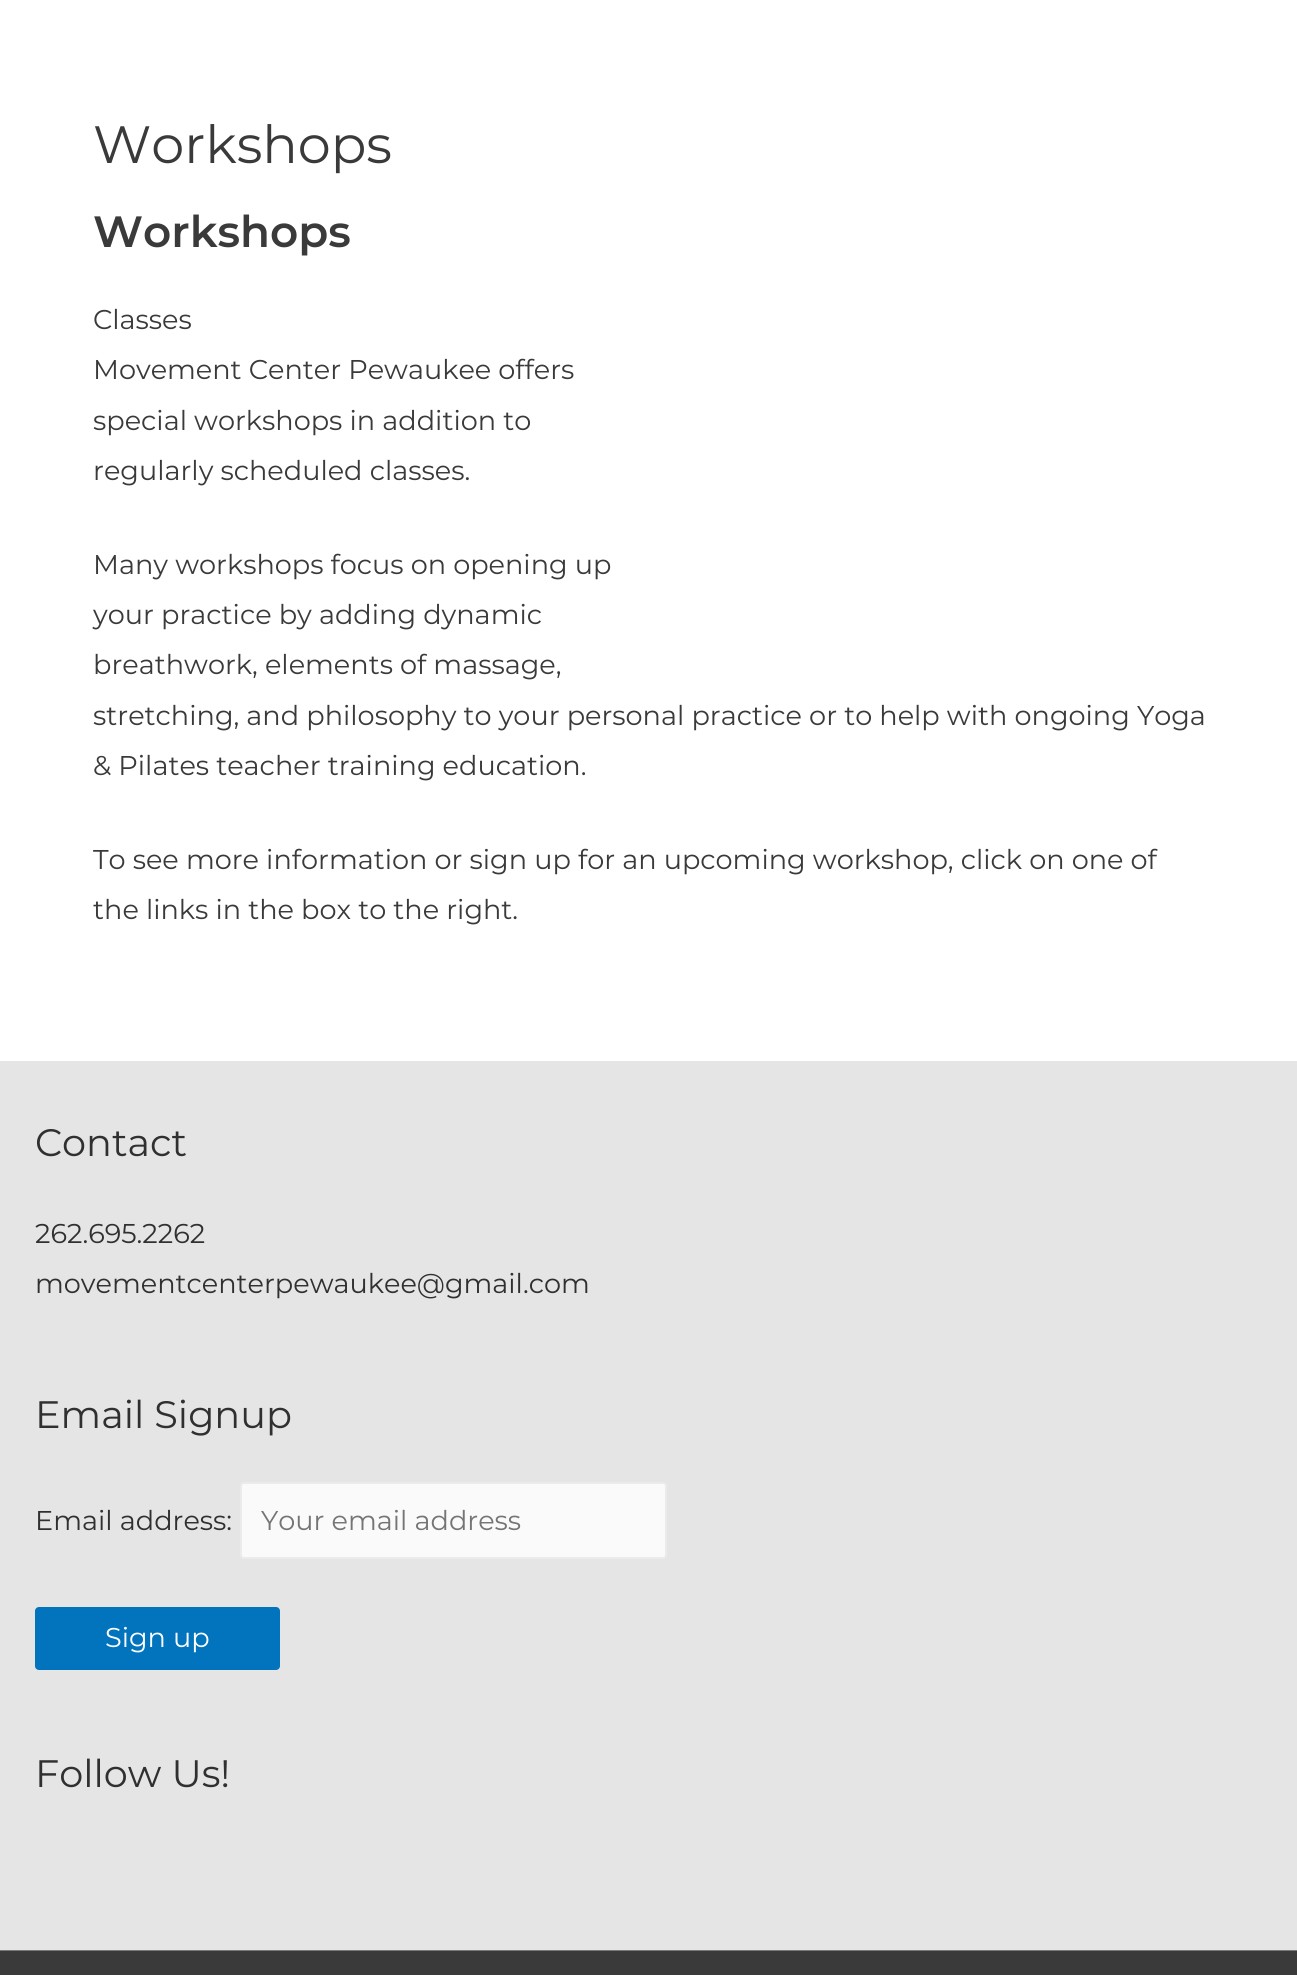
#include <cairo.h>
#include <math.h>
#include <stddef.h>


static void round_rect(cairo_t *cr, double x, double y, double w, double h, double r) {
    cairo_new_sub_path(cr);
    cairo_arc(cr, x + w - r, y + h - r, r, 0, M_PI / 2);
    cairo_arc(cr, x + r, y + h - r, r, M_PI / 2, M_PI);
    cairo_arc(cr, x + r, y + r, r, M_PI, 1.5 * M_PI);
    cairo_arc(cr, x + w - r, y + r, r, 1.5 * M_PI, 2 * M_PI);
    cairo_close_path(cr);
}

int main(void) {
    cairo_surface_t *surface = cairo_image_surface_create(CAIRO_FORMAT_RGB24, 1297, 1975);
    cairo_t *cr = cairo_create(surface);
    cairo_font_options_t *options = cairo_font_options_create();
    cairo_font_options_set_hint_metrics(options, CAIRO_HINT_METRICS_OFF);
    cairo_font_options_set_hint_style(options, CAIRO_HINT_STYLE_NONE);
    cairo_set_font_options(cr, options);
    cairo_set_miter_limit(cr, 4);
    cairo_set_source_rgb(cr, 1, 1, 1);
    cairo_paint(cr);
    cairo_select_font_face(cr, "Montserrat", CAIRO_FONT_SLANT_NORMAL, CAIRO_FONT_WEIGHT_NORMAL);
    cairo_set_font_size(cr, 52.5);
    cairo_set_source_rgb(cr, 0.227, 0.227, 0.227);
    cairo_move_to(cr, 93, 163);
    cairo_show_text(cr, "Workshops");
    cairo_select_font_face(cr, "Montserrat SemiBold", CAIRO_FONT_SLANT_NORMAL, CAIRO_FONT_WEIGHT_NORMAL);
    cairo_set_font_size(cr, 43.75);
    cairo_move_to(cr, 93, 247);
    cairo_show_text(cr, "Workshops");
    cairo_select_font_face(cr, "Montserrat", CAIRO_FONT_SLANT_NORMAL, CAIRO_FONT_WEIGHT_NORMAL);
    cairo_set_font_size(cr, 27.15);
    cairo_move_to(cr, 93, 329);
    cairo_show_text(cr, "Classes");
    cairo_move_to(cr, 93, 379);
    cairo_show_text(cr, "Movement Center Pewaukee offers");
    cairo_move_to(cr, 93, 430);
    cairo_show_text(cr, "special workshops in addition to");
    cairo_move_to(cr, 93, 480);
    cairo_show_text(cr, "regularly scheduled classes.");
    cairo_move_to(cr, 93, 574);
    cairo_show_text(cr, "Many workshops focus on opening up");
    cairo_move_to(cr, 93, 624);
    cairo_show_text(cr, "your practice by adding dynamic");
    cairo_move_to(cr, 93, 674);
    cairo_show_text(cr, "breathwork, elements of massage,");
    cairo_move_to(cr, 93, 725);
    cairo_show_text(cr, "stretching, and philosophy to your personal practice or to help with ongoing Yoga");
    cairo_move_to(cr, 93, 775);
    cairo_show_text(cr, "& Pilates teacher training education.");
    cairo_move_to(cr, 93, 869);
    cairo_show_text(cr, "To see more information or sign up for an upcoming workshop, click on one of");
    cairo_move_to(cr, 93, 919);
    cairo_show_text(cr, "the links in the box to the right.");
    cairo_set_source_rgb(cr, 0.898, 0.898, 0.898);
    cairo_rectangle(cr, 0, 1061, 1297, 889);
    cairo_fill(cr);
    cairo_set_font_size(cr, 38.25);
    cairo_set_source_rgb(cr, 0.188, 0.188, 0.188);
    cairo_move_to(cr, 35, 1156);
    cairo_show_text(cr, "Contact");
    cairo_set_font_size(cr, 27.15);
    cairo_move_to(cr, 35, 1243);
    cairo_show_text(cr, "262.695.2262");
    cairo_move_to(cr, 35, 1293);
    cairo_show_text(cr, "movementcenterpewaukee@gmail.com");
    cairo_set_font_size(cr, 38.25);
    cairo_move_to(cr, 35, 1428);
    cairo_show_text(cr, "Email Signup");
    cairo_set_font_size(cr, 27.15);
    cairo_move_to(cr, 35, 1530);
    cairo_show_text(cr, "Email address:");
    cairo_set_source_rgb(cr, 0.98, 0.98, 0.98);
    round_rect(cr, 241, 1483, 425, 75, 3);
    cairo_fill_preserve(cr);
    cairo_set_source_rgb(cr, 0.918, 0.918, 0.918);
    cairo_stroke(cr);
    cairo_set_source_rgb(cr, 0.459, 0.459, 0.459);
    cairo_move_to(cr, 261, 1530);
    cairo_show_text(cr, "Your email address");
    cairo_set_source_rgb(cr, 0.008, 0.455, 0.745);
    round_rect(cr, 35, 1607, 245, 63, 4);
    cairo_fill(cr);
    cairo_set_source_rgb(cr, 1, 1, 1);
    cairo_move_to(cr, 105, 1647);
    cairo_show_text(cr, "Sign up");
    cairo_set_font_size(cr, 38.25);
    cairo_set_source_rgb(cr, 0.188, 0.188, 0.188);
    cairo_move_to(cr, 35, 1787);
    cairo_show_text(cr, "Follow Us!");
    cairo_set_source_rgb(cr, 0.478, 0.478, 0.478);
    cairo_rectangle(cr, 0, 1950, 1297, 1);
    cairo_fill(cr);
    cairo_set_source_rgb(cr, 0.227, 0.227, 0.227);
    cairo_rectangle(cr, 0, 1951, 1297, 24);
    cairo_fill(cr);
    cairo_surface_write_to_png(surface, "page.png");
    cairo_font_options_destroy(options);
    cairo_destroy(cr);
    cairo_surface_destroy(surface);
    return 0;
}
